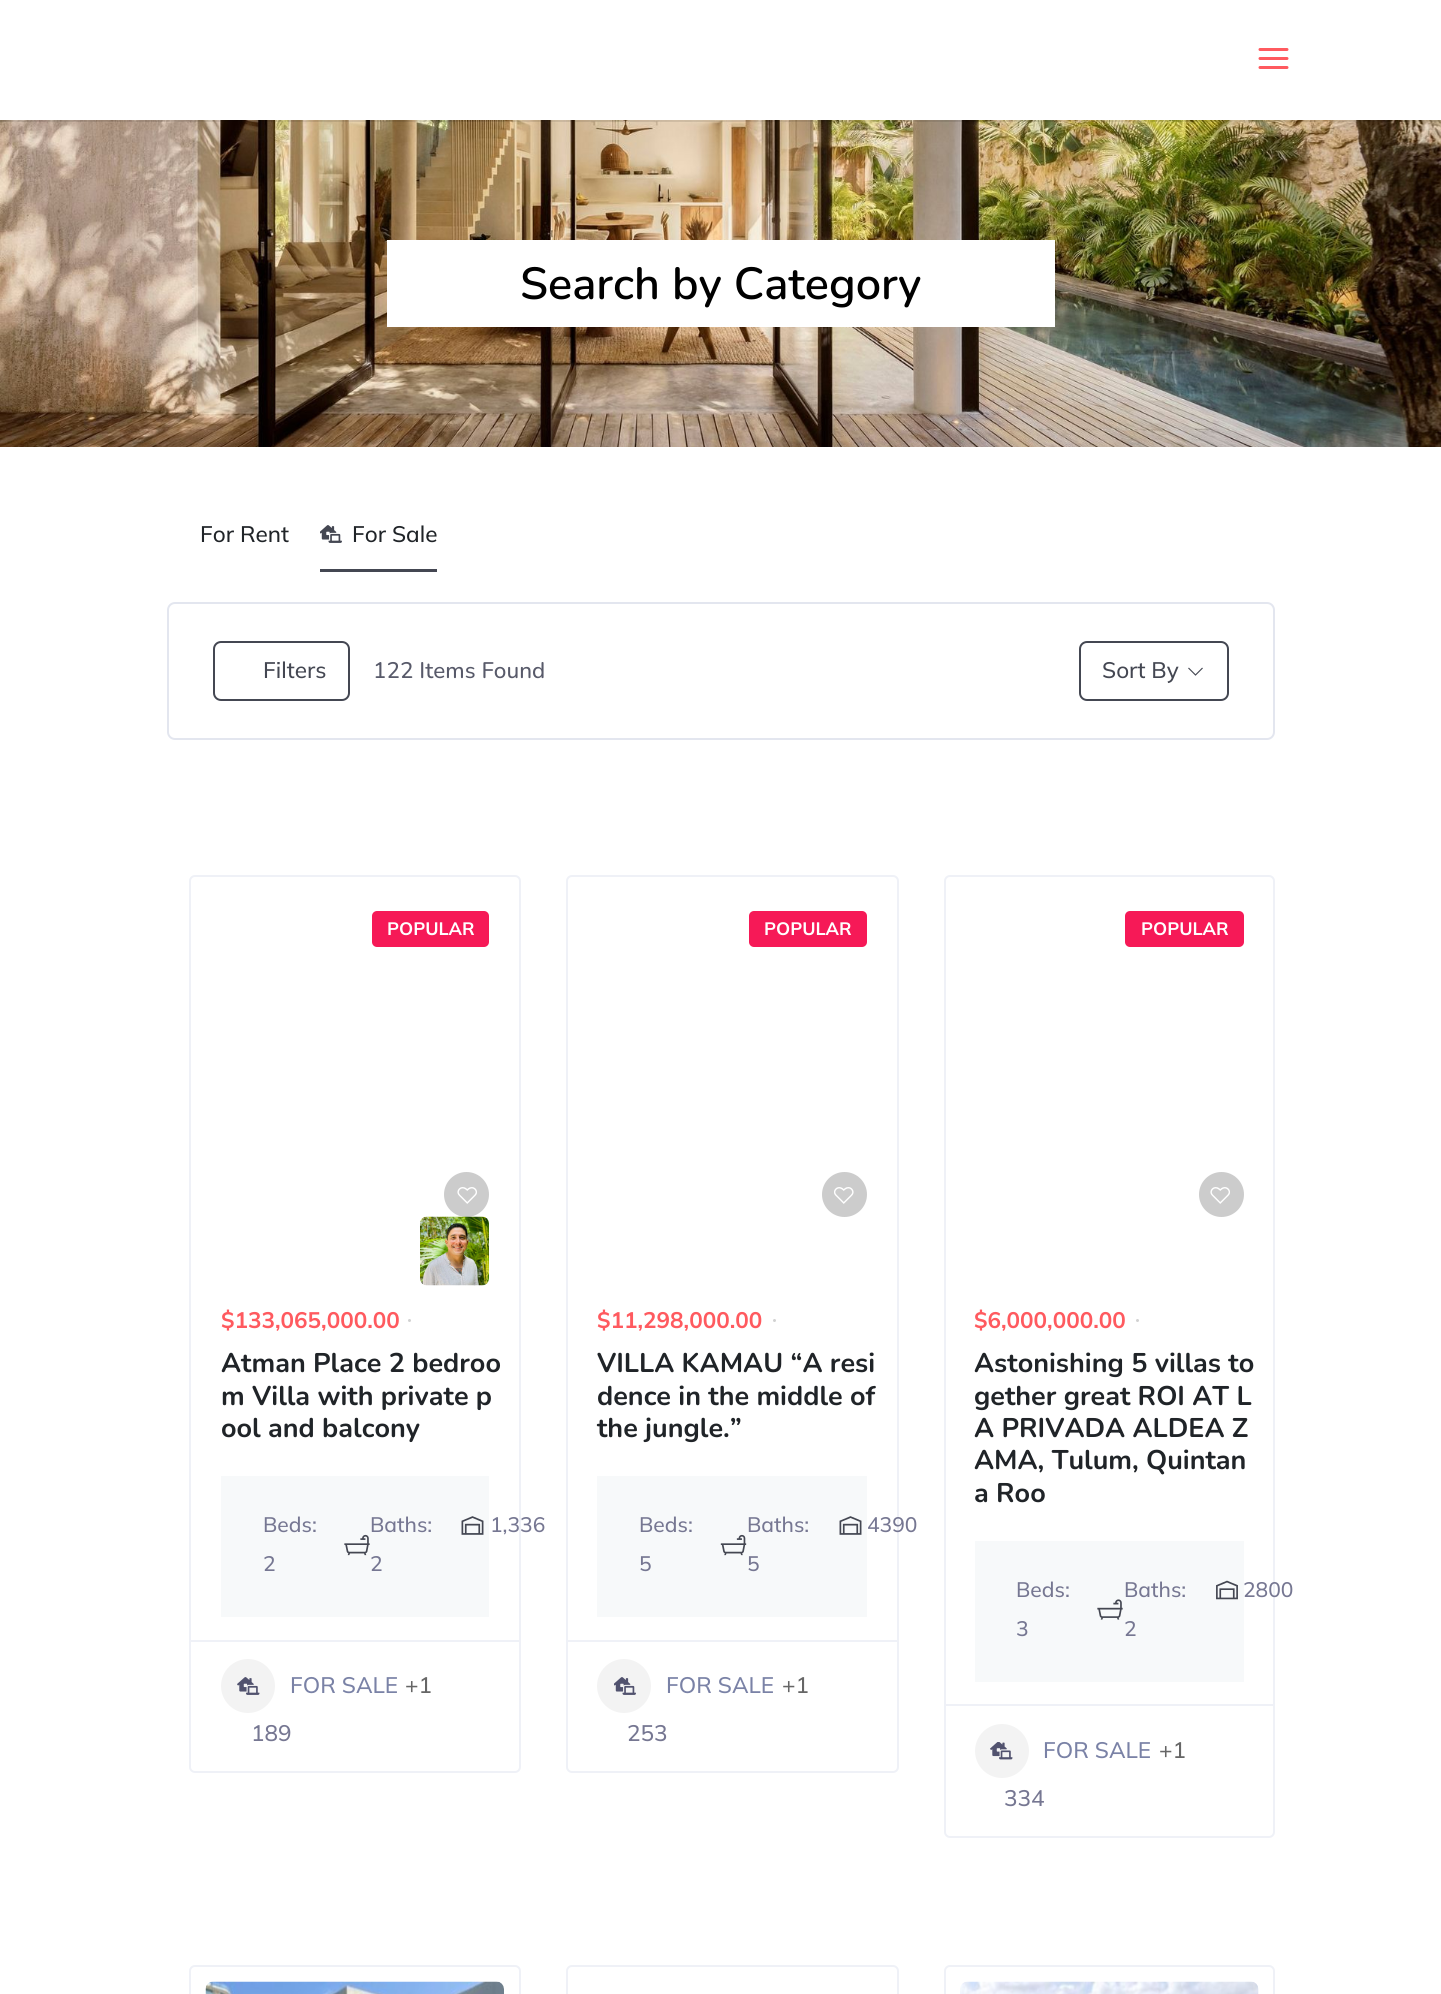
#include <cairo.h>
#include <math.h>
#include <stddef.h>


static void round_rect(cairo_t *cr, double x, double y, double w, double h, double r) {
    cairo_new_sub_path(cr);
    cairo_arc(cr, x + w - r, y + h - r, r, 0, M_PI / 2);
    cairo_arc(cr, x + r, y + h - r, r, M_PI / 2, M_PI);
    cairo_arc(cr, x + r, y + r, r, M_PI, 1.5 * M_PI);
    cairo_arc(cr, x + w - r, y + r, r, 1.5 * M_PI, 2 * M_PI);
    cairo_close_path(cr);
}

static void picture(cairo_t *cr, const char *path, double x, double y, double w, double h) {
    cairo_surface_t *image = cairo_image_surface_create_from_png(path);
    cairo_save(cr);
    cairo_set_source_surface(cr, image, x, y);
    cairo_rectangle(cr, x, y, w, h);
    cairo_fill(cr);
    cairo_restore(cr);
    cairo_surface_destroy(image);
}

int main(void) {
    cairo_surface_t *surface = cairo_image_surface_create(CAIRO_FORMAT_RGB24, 1441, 1994);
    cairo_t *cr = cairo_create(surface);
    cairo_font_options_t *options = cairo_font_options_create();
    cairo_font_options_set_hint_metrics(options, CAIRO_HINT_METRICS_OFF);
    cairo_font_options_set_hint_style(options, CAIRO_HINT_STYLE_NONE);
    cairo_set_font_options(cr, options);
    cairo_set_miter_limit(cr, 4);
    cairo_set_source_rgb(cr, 1, 1, 1);
    cairo_paint(cr);
    picture(cr, "img2.png", 0, 120, 1441, 327);
    cairo_set_source_rgba(cr, 0, 0, 0, 0.1);
    cairo_new_path(cr);
    cairo_move_to(cr, 0, 120);
    cairo_line_to(cr, 0, 122);
    cairo_line_to(cr, 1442, 122);
    cairo_line_to(cr, 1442, 2);
    cairo_line_to(cr, 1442, 120);
    cairo_close_path(cr);
    cairo_fill(cr);
    picture(cr, "img1.png", 1258, 48, 31, 21);
    cairo_set_source_rgb(cr, 1, 1, 1);
    cairo_rectangle(cr, 387, 240, 668, 87);
    cairo_fill(cr);
    cairo_select_font_face(cr, "Nunito ExtraLight", CAIRO_FONT_SLANT_NORMAL, CAIRO_FONT_WEIGHT_NORMAL);
    cairo_set_font_size(cr, 45);
    cairo_set_source_rgb(cr, 0, 0, 0);
    cairo_move_to(cr, 520, 299);
    cairo_show_text(cr, "Search by Category");
    cairo_select_font_face(cr, "Mulish ExtraLight", CAIRO_FONT_SLANT_NORMAL, CAIRO_FONT_WEIGHT_NORMAL);
    cairo_set_font_size(cr, 22.5);
    cairo_set_source_rgb(cr, 0.125, 0.141, 0.157);
    cairo_move_to(cr, 200, 542);
    cairo_show_text(cr, "For Rent");
    cairo_set_source_rgb(cr, 0.267, 0.278, 0.322);
    cairo_rectangle(cr, 320, 569, 117, 3);
    cairo_fill(cr);
    picture(cr, "img3.png", 320, 525, 22, 18);
    cairo_set_source_rgb(cr, 0.125, 0.141, 0.157);
    cairo_move_to(cr, 352, 542);
    cairo_show_text(cr, "For Sale");
    round_rect(cr, 168, 603, 1106, 136, 7);
    cairo_set_source_rgb(cr, 0.89, 0.902, 0.937);
    cairo_stroke(cr);
    round_rect(cr, 214, 642, 135, 58, 7);
    cairo_set_source_rgb(cr, 0.267, 0.278, 0.322);
    cairo_stroke(cr);
    cairo_move_to(cr, 263, 678);
    cairo_show_text(cr, "Filters");
    cairo_select_font_face(cr, "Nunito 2 ExtraLight", CAIRO_FONT_SLANT_NORMAL, CAIRO_FONT_WEIGHT_NORMAL);
    cairo_set_source_rgb(cr, 0.345, 0.353, 0.416);
    cairo_move_to(cr, 373, 678);
    cairo_show_text(cr, "122 Items Found");
    round_rect(cr, 1080, 642, 148, 58, 7);
    cairo_set_source_rgb(cr, 0.267, 0.278, 0.322);
    cairo_stroke(cr);
    cairo_select_font_face(cr, "Mulish ExtraLight", CAIRO_FONT_SLANT_NORMAL, CAIRO_FONT_WEIGHT_NORMAL);
    cairo_move_to(cr, 1102, 678);
    cairo_show_text(cr, "Sort By");
    picture(cr, "img4.png", 1188, 667, 15, 9);
    round_rect(cr, 190, 876, 330, 896, 5);
    cairo_set_source_rgb(cr, 0.937, 0.945, 0.965);
    cairo_stroke(cr);
    cairo_set_source_rgb(cr, 0.961, 0.098, 0.341);
    round_rect(cr, 372, 911, 117, 36, 5);
    cairo_fill(cr);
    cairo_select_font_face(cr, "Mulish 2 ExtraLight", CAIRO_FONT_SLANT_NORMAL, CAIRO_FONT_WEIGHT_NORMAL);
    cairo_set_font_size(cr, 18);
    cairo_set_source_rgb(cr, 1, 1, 1);
    cairo_move_to(cr, 387, 935);
    cairo_show_text(cr, "POPULAR");
    cairo_set_source_rgb(cr, 0.8, 0.8, 0.8);
    cairo_new_path(cr);
    cairo_arc(cr, 466.5, 1194.5, 22.5, 0, 2 * M_PI);
    cairo_fill(cr);
    picture(cr, "img5.png", 457, 1187, 20, 17);
    picture(cr, "img6.png", 420, 1216, 69, 70);
    cairo_set_font_size(cr, 22.5);
    cairo_set_source_rgb(cr, 1, 0.353, 0.373);
    cairo_move_to(cr, 221, 1328);
    cairo_show_text(cr, "$133,065,000.00");
    cairo_set_source_rgb(cr, 0.82, 0.82, 0.82);
    cairo_new_path(cr);
    cairo_arc(cr, 409.5, 1320.5, 1.5, 0, 2 * M_PI);
    cairo_fill(cr);
    cairo_select_font_face(cr, "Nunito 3 ExtraLight", CAIRO_FONT_SLANT_NORMAL, CAIRO_FONT_WEIGHT_NORMAL);
    cairo_set_font_size(cr, 27);
    cairo_set_source_rgb(cr, 0.125, 0.141, 0.157);
    cairo_move_to(cr, 221, 1372);
    cairo_show_text(cr, "Atman Place 2 bedroo");
    cairo_move_to(cr, 221, 1405);
    cairo_show_text(cr, "m Villa with private p");
    cairo_move_to(cr, 221, 1437);
    cairo_show_text(cr, "ool and balcony");
    cairo_set_source_rgb(cr, 0.965, 0.976, 0.98);
    cairo_rectangle(cr, 221, 1476, 268, 141);
    cairo_fill(cr);
    cairo_select_font_face(cr, "Mulish ExtraLight", CAIRO_FONT_SLANT_NORMAL, CAIRO_FONT_WEIGHT_NORMAL);
    cairo_set_font_size(cr, 21);
    cairo_set_source_rgb(cr, 0.463, 0.467, 0.573);
    cairo_move_to(cr, 263, 1532);
    cairo_show_text(cr, "Beds:");
    cairo_move_to(cr, 263, 1571);
    cairo_show_text(cr, "2");
    cairo_move_to(cr, 370, 1532);
    cairo_show_text(cr, "Baths:");
    picture(cr, "img7.png", 344, 1534, 26, 22);
    cairo_move_to(cr, 370, 1571);
    cairo_show_text(cr, "2");
    picture(cr, "img8.png", 461, 1516, 23, 19);
    cairo_move_to(cr, 490, 1532);
    cairo_show_text(cr, "1,336");
    cairo_set_source_rgb(cr, 0.937, 0.945, 0.965);
    cairo_rectangle(cr, 191, 1640, 328, 2);
    cairo_fill(cr);
    cairo_set_source_rgb(cr, 0.953, 0.953, 0.953);
    cairo_arc(cr, 248, 1686, 27, 0, 2 * M_PI);
    cairo_fill(cr);
    picture(cr, "img9.png", 237, 1677, 23, 18);
    cairo_set_font_size(cr, 22.5);
    cairo_set_source_rgb(cr, 0.478, 0.51, 0.651);
    cairo_move_to(cr, 290, 1693);
    cairo_show_text(cr, "FOR SALE");
    cairo_set_source_rgb(cr, 0.4, 0.4, 0.4);
    cairo_move_to(cr, 405, 1693);
    cairo_show_text(cr, "+1");
    cairo_set_source_rgb(cr, 0.463, 0.467, 0.573);
    cairo_move_to(cr, 251, 1741);
    cairo_show_text(cr, "189");
    round_rect(cr, 567, 876, 331, 896, 5);
    cairo_set_source_rgb(cr, 0.937, 0.945, 0.965);
    cairo_stroke(cr);
    cairo_set_source_rgb(cr, 0.961, 0.098, 0.341);
    round_rect(cr, 749, 911, 118, 36, 5);
    cairo_fill(cr);
    cairo_select_font_face(cr, "Mulish 2 ExtraLight", CAIRO_FONT_SLANT_NORMAL, CAIRO_FONT_WEIGHT_NORMAL);
    cairo_set_font_size(cr, 18);
    cairo_set_source_rgb(cr, 1, 1, 1);
    cairo_move_to(cr, 764, 935);
    cairo_show_text(cr, "POPULAR");
    cairo_set_source_rgb(cr, 0.8, 0.8, 0.8);
    cairo_new_path(cr);
    cairo_arc(cr, 844.5, 1194.5, 22.5, 0, 2 * M_PI);
    cairo_fill(cr);
    picture(cr, "img10.png", 834, 1187, 20, 17);
    cairo_set_font_size(cr, 22.5);
    cairo_set_source_rgb(cr, 1, 0.353, 0.373);
    cairo_move_to(cr, 597, 1328);
    cairo_show_text(cr, "$11,298,000.00");
    cairo_set_source_rgb(cr, 0.82, 0.82, 0.82);
    cairo_new_path(cr);
    cairo_arc(cr, 774.5, 1320.5, 1.5, 0, 2 * M_PI);
    cairo_fill(cr);
    cairo_select_font_face(cr, "Nunito 3 ExtraLight", CAIRO_FONT_SLANT_NORMAL, CAIRO_FONT_WEIGHT_NORMAL);
    cairo_set_font_size(cr, 27);
    cairo_set_source_rgb(cr, 0.125, 0.141, 0.157);
    cairo_move_to(cr, 597, 1372);
    cairo_show_text(cr, "VILLA KAMAU “A resi");
    cairo_move_to(cr, 597, 1405);
    cairo_show_text(cr, "dence in the middle of");
    cairo_move_to(cr, 597, 1437);
    cairo_show_text(cr, "the jungle.”");
    cairo_set_source_rgb(cr, 0.965, 0.976, 0.98);
    cairo_rectangle(cr, 597, 1476, 270, 141);
    cairo_fill(cr);
    cairo_select_font_face(cr, "Mulish ExtraLight", CAIRO_FONT_SLANT_NORMAL, CAIRO_FONT_WEIGHT_NORMAL);
    cairo_set_font_size(cr, 21);
    cairo_set_source_rgb(cr, 0.463, 0.467, 0.573);
    cairo_move_to(cr, 639, 1532);
    cairo_show_text(cr, "Beds:");
    cairo_move_to(cr, 639, 1571);
    cairo_show_text(cr, "5");
    cairo_move_to(cr, 747, 1532);
    cairo_show_text(cr, "Baths:");
    picture(cr, "img11.png", 720, 1534, 27, 22);
    cairo_move_to(cr, 747, 1571);
    cairo_show_text(cr, "5");
    picture(cr, "img8.png", 839, 1516, 23, 19);
    cairo_move_to(cr, 867, 1532);
    cairo_show_text(cr, "4390");
    cairo_set_source_rgb(cr, 0.937, 0.945, 0.965);
    cairo_rectangle(cr, 567, 1640, 330, 2);
    cairo_fill(cr);
    cairo_set_source_rgb(cr, 0.953, 0.953, 0.953);
    cairo_arc(cr, 624, 1686, 27, 0, 2 * M_PI);
    cairo_fill(cr);
    picture(cr, "img12.png", 614, 1677, 22, 18);
    cairo_set_font_size(cr, 22.5);
    cairo_set_source_rgb(cr, 0.478, 0.51, 0.651);
    cairo_move_to(cr, 666, 1693);
    cairo_show_text(cr, "FOR SALE");
    cairo_set_source_rgb(cr, 0.4, 0.4, 0.4);
    cairo_move_to(cr, 782, 1693);
    cairo_show_text(cr, "+1");
    cairo_set_source_rgb(cr, 0.463, 0.467, 0.573);
    cairo_move_to(cr, 627, 1741);
    cairo_show_text(cr, "253");
    round_rect(cr, 945, 876, 329, 961, 5);
    cairo_set_source_rgb(cr, 0.937, 0.945, 0.965);
    cairo_stroke(cr);
    cairo_set_source_rgb(cr, 0.961, 0.098, 0.341);
    round_rect(cr, 1125, 911, 119, 36, 5);
    cairo_fill(cr);
    cairo_select_font_face(cr, "Mulish 2 ExtraLight", CAIRO_FONT_SLANT_NORMAL, CAIRO_FONT_WEIGHT_NORMAL);
    cairo_set_font_size(cr, 18);
    cairo_set_source_rgb(cr, 1, 1, 1);
    cairo_move_to(cr, 1141, 935);
    cairo_show_text(cr, "POPULAR");
    cairo_set_source_rgb(cr, 0.8, 0.8, 0.8);
    cairo_new_path(cr);
    cairo_arc(cr, 1221.5, 1194.5, 22.5, 0, 2 * M_PI);
    cairo_fill(cr);
    picture(cr, "img5.png", 1210, 1187, 20, 17);
    cairo_set_font_size(cr, 22.5);
    cairo_set_source_rgb(cr, 1, 0.353, 0.373);
    cairo_move_to(cr, 974, 1328);
    cairo_show_text(cr, "$6,000,000.00");
    cairo_set_source_rgb(cr, 0.82, 0.82, 0.82);
    cairo_new_path(cr);
    cairo_arc(cr, 1137.5, 1320.5, 1.5, 0, 2 * M_PI);
    cairo_fill(cr);
    cairo_select_font_face(cr, "Nunito 3 ExtraLight", CAIRO_FONT_SLANT_NORMAL, CAIRO_FONT_WEIGHT_NORMAL);
    cairo_set_font_size(cr, 27);
    cairo_set_source_rgb(cr, 0.125, 0.141, 0.157);
    cairo_move_to(cr, 974, 1372);
    cairo_show_text(cr, "Astonishing 5 villas to");
    cairo_move_to(cr, 974, 1405);
    cairo_show_text(cr, "gether great ROI AT L");
    cairo_move_to(cr, 974, 1437);
    cairo_show_text(cr, "A PRIVADA ALDEA Z");
    cairo_move_to(cr, 974, 1469);
    cairo_show_text(cr, "AMA, Tulum, Quintan");
    cairo_move_to(cr, 974, 1502);
    cairo_show_text(cr, "a Roo");
    cairo_set_source_rgb(cr, 0.965, 0.976, 0.98);
    cairo_rectangle(cr, 975, 1541, 269, 141);
    cairo_fill(cr);
    cairo_select_font_face(cr, "Mulish ExtraLight", CAIRO_FONT_SLANT_NORMAL, CAIRO_FONT_WEIGHT_NORMAL);
    cairo_set_font_size(cr, 21);
    cairo_set_source_rgb(cr, 0.463, 0.467, 0.573);
    cairo_move_to(cr, 1016, 1597);
    cairo_show_text(cr, "Beds:");
    cairo_move_to(cr, 1016, 1636);
    cairo_show_text(cr, "3");
    cairo_move_to(cr, 1124, 1597);
    cairo_show_text(cr, "Baths:");
    picture(cr, "img13.png", 1097, 1599, 26, 21);
    cairo_move_to(cr, 1124, 1636);
    cairo_show_text(cr, "2");
    picture(cr, "img14.png", 1216, 1580, 22, 20);
    cairo_move_to(cr, 1243, 1597);
    cairo_show_text(cr, "2800");
    cairo_set_source_rgb(cr, 0.937, 0.945, 0.965);
    cairo_rectangle(cr, 945, 1704, 329, 2);
    cairo_fill(cr);
    cairo_set_source_rgb(cr, 0.953, 0.953, 0.953);
    cairo_arc(cr, 1002, 1751, 27, 0, 2 * M_PI);
    cairo_fill(cr);
    picture(cr, "img15.png", 990, 1742, 23, 18);
    cairo_set_font_size(cr, 22.5);
    cairo_set_source_rgb(cr, 0.478, 0.51, 0.651);
    cairo_move_to(cr, 1043, 1758);
    cairo_show_text(cr, "FOR SALE");
    cairo_set_source_rgb(cr, 0.4, 0.4, 0.4);
    cairo_move_to(cr, 1159, 1758);
    cairo_show_text(cr, "+1");
    cairo_set_source_rgb(cr, 0.463, 0.467, 0.573);
    cairo_move_to(cr, 1004, 1806);
    cairo_show_text(cr, "334");
    round_rect(cr, 190, 1966, 330, 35, 5);
    cairo_set_source_rgb(cr, 0.937, 0.945, 0.965);
    cairo_stroke(cr);
    picture(cr, "img16.png", 205, 1981, 299, 13);
    round_rect(cr, 567, 1966, 331, 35, 5);
    cairo_stroke(cr);
    round_rect(cr, 945, 1966, 329, 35, 5);
    cairo_stroke(cr);
    picture(cr, "img17.png", 960, 1981, 299, 13);
    cairo_surface_write_to_png(surface, "page.png");
    cairo_font_options_destroy(options);
    cairo_destroy(cr);
    cairo_surface_destroy(surface);
    return 0;
}
